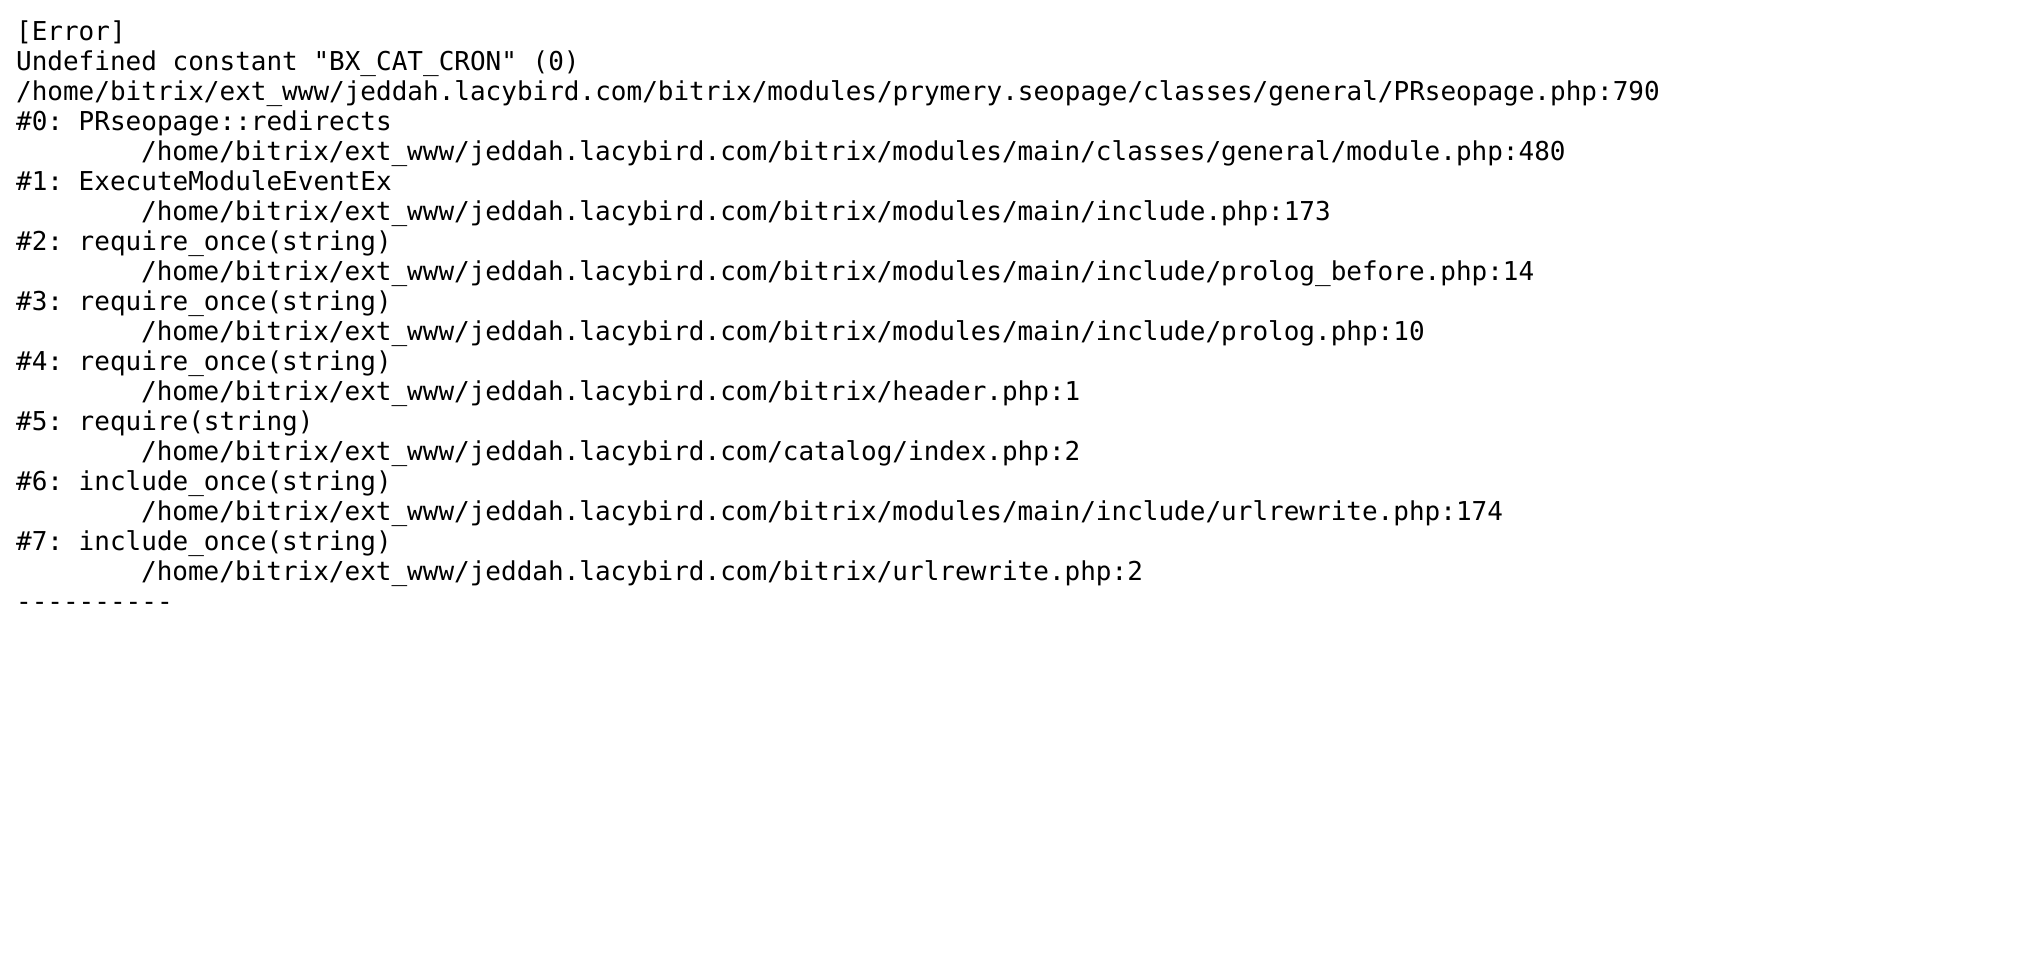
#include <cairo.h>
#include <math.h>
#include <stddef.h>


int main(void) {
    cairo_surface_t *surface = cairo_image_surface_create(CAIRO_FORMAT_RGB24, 2019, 975);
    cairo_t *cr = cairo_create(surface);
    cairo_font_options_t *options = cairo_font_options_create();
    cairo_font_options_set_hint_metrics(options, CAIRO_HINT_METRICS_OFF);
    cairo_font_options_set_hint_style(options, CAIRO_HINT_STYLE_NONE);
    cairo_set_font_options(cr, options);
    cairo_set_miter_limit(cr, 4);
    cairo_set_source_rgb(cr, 1, 1, 1);
    cairo_paint(cr);
    cairo_select_font_face(cr, "DejaVu Sans Mono", CAIRO_FONT_SLANT_NORMAL, CAIRO_FONT_WEIGHT_NORMAL);
    cairo_set_font_size(cr, 26);
    cairo_set_source_rgb(cr, 0, 0, 0);
    cairo_move_to(cr, 16, 40);
    cairo_show_text(cr, "[Error]");
    cairo_move_to(cr, 16, 70);
    cairo_show_text(cr, "Undefined constant \"BX_CAT_CRON\" (0)");
    cairo_move_to(cr, 16, 100);
    cairo_show_text(cr, "/home/bitrix/ext_www/jeddah.lacybird.com/bitrix/modules/prymery.seopage/classes/general/PRseopage.php:790");
    cairo_move_to(cr, 16, 130);
    cairo_show_text(cr, "#0: PRseopage::redirects");
    cairo_move_to(cr, 141, 160);
    cairo_show_text(cr, "/home/bitrix/ext_www/jeddah.lacybird.com/bitrix/modules/main/classes/general/module.php:480");
    cairo_move_to(cr, 16, 190);
    cairo_show_text(cr, "#1: ExecuteModuleEventEx");
    cairo_move_to(cr, 141, 220);
    cairo_show_text(cr, "/home/bitrix/ext_www/jeddah.lacybird.com/bitrix/modules/main/include.php:173");
    cairo_move_to(cr, 16, 250);
    cairo_show_text(cr, "#2: require_once(string)");
    cairo_move_to(cr, 141, 280);
    cairo_show_text(cr, "/home/bitrix/ext_www/jeddah.lacybird.com/bitrix/modules/main/include/prolog_before.php:14");
    cairo_move_to(cr, 16, 310);
    cairo_show_text(cr, "#3: require_once(string)");
    cairo_move_to(cr, 141, 340);
    cairo_show_text(cr, "/home/bitrix/ext_www/jeddah.lacybird.com/bitrix/modules/main/include/prolog.php:10");
    cairo_move_to(cr, 16, 370);
    cairo_show_text(cr, "#4: require_once(string)");
    cairo_move_to(cr, 141, 400);
    cairo_show_text(cr, "/home/bitrix/ext_www/jeddah.lacybird.com/bitrix/header.php:1");
    cairo_move_to(cr, 16, 430);
    cairo_show_text(cr, "#5: require(string)");
    cairo_move_to(cr, 141, 460);
    cairo_show_text(cr, "/home/bitrix/ext_www/jeddah.lacybird.com/catalog/index.php:2");
    cairo_move_to(cr, 16, 490);
    cairo_show_text(cr, "#6: include_once(string)");
    cairo_move_to(cr, 141, 520);
    cairo_show_text(cr, "/home/bitrix/ext_www/jeddah.lacybird.com/bitrix/modules/main/include/urlrewrite.php:174");
    cairo_move_to(cr, 16, 550);
    cairo_show_text(cr, "#7: include_once(string)");
    cairo_move_to(cr, 141, 580);
    cairo_show_text(cr, "/home/bitrix/ext_www/jeddah.lacybird.com/bitrix/urlrewrite.php:2");
    cairo_move_to(cr, 16, 610);
    cairo_show_text(cr, "----------");
    cairo_surface_write_to_png(surface, "page.png");
    cairo_font_options_destroy(options);
    cairo_destroy(cr);
    cairo_surface_destroy(surface);
    return 0;
}
